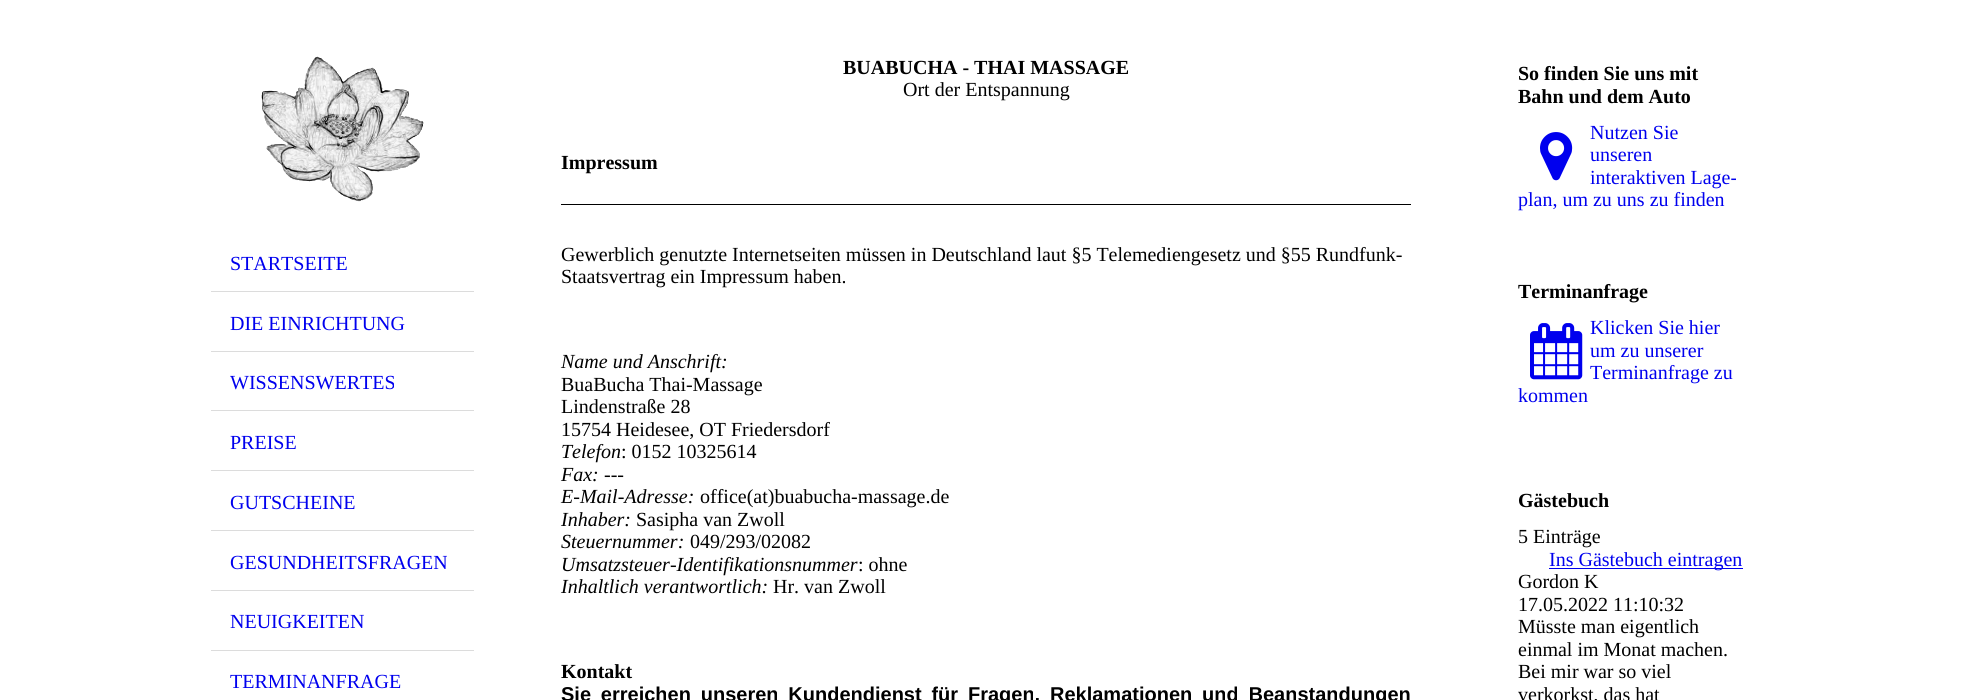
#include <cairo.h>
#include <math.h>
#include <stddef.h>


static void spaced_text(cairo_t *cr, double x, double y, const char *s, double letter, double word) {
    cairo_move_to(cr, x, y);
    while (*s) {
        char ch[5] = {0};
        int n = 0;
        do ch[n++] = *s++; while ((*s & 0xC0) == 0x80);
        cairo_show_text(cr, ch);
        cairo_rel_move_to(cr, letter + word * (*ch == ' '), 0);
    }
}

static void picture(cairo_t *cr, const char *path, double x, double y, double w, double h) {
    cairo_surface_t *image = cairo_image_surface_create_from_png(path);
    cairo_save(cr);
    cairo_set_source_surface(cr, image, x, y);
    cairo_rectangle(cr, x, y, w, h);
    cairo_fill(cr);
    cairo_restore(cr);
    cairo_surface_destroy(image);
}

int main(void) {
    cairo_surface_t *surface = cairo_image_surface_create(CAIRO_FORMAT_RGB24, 1972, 700);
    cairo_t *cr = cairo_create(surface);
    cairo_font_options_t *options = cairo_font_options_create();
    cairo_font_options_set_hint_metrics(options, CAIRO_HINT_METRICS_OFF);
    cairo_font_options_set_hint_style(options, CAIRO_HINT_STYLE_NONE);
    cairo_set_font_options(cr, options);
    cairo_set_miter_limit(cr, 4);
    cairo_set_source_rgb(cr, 1, 1, 1);
    cairo_paint(cr);
    picture(cr, "img1.png", 261, 56, 163, 146);
    cairo_set_source_rgb(cr, 0.863, 0.863, 0.863);
    cairo_rectangle(cr, 211, 291, 263, 1);
    cairo_fill(cr);
    cairo_select_font_face(cr, "Liberation Serif", CAIRO_FONT_SLANT_NORMAL, CAIRO_FONT_WEIGHT_NORMAL);
    cairo_set_font_size(cr, 20);
    cairo_set_source_rgb(cr, 0, 0, 0.933);
    cairo_move_to(cr, 230, 270);
    cairo_show_text(cr, "STARTSEITE");
    cairo_set_source_rgb(cr, 0.863, 0.863, 0.863);
    cairo_rectangle(cr, 211, 351, 263, 1);
    cairo_fill(cr);
    cairo_set_source_rgb(cr, 0, 0, 0.933);
    cairo_move_to(cr, 230, 330);
    cairo_show_text(cr, "DIE EINRICHTUNG");
    cairo_set_source_rgb(cr, 0.863, 0.863, 0.863);
    cairo_rectangle(cr, 211, 410, 263, 1);
    cairo_fill(cr);
    cairo_set_source_rgb(cr, 0, 0, 0.933);
    cairo_move_to(cr, 230, 389);
    cairo_show_text(cr, "WISSENSWERTES");
    cairo_set_source_rgb(cr, 0.863, 0.863, 0.863);
    cairo_rectangle(cr, 211, 470, 263, 1);
    cairo_fill(cr);
    cairo_set_source_rgb(cr, 0, 0, 0.933);
    cairo_move_to(cr, 230, 449);
    cairo_show_text(cr, "PREISE");
    cairo_set_source_rgb(cr, 0.863, 0.863, 0.863);
    cairo_rectangle(cr, 211, 530, 263, 1);
    cairo_fill(cr);
    cairo_set_source_rgb(cr, 0, 0, 0.933);
    cairo_move_to(cr, 230, 509);
    cairo_show_text(cr, "GUTSCHEINE");
    cairo_set_source_rgb(cr, 0.863, 0.863, 0.863);
    cairo_rectangle(cr, 211, 590, 263, 1);
    cairo_fill(cr);
    cairo_set_source_rgb(cr, 0, 0, 0.933);
    cairo_move_to(cr, 230, 569);
    cairo_show_text(cr, "GESUNDHEITSFRAGEN");
    cairo_set_source_rgb(cr, 0.863, 0.863, 0.863);
    cairo_rectangle(cr, 211, 650, 263, 1);
    cairo_fill(cr);
    cairo_set_source_rgb(cr, 0, 0, 0.933);
    cairo_move_to(cr, 230, 628);
    cairo_show_text(cr, "NEUIGKEITEN");
    cairo_move_to(cr, 230, 688);
    cairo_show_text(cr, "TERMINANFRAGE");
    cairo_select_font_face(cr, "Liberation Serif", CAIRO_FONT_SLANT_NORMAL, CAIRO_FONT_WEIGHT_BOLD);
    cairo_set_source_rgb(cr, 0, 0, 0);
    cairo_move_to(cr, 843, 74);
    cairo_show_text(cr, "BUABUCHA - THAI MASSAGE");
    cairo_select_font_face(cr, "Liberation Serif", CAIRO_FONT_SLANT_NORMAL, CAIRO_FONT_WEIGHT_NORMAL);
    cairo_move_to(cr, 903, 96);
    cairo_show_text(cr, "Ort der Entspannung");
    cairo_select_font_face(cr, "Liberation Serif", CAIRO_FONT_SLANT_NORMAL, CAIRO_FONT_WEIGHT_BOLD);
    cairo_move_to(cr, 561, 169);
    cairo_show_text(cr, "Impressum");
    cairo_rectangle(cr, 561, 204, 850, 1);
    cairo_fill(cr);
    cairo_select_font_face(cr, "Liberation Serif", CAIRO_FONT_SLANT_NORMAL, CAIRO_FONT_WEIGHT_NORMAL);
    cairo_move_to(cr, 561, 261);
    cairo_show_text(cr, "Gewerblich genutzte Internetseiten müssen in Deutschland laut §5 Telemediengesetz und §55 Rundfunk-");
    cairo_move_to(cr, 561, 283);
    cairo_show_text(cr, "Staatsvertrag ein Impressum haben.");
    cairo_select_font_face(cr, "Liberation Serif", CAIRO_FONT_SLANT_ITALIC, CAIRO_FONT_WEIGHT_NORMAL);
    cairo_move_to(cr, 561, 368);
    cairo_show_text(cr, "Name und Anschrift:");
    cairo_select_font_face(cr, "Liberation Serif", CAIRO_FONT_SLANT_NORMAL, CAIRO_FONT_WEIGHT_NORMAL);
    cairo_move_to(cr, 561, 391);
    cairo_show_text(cr, "BuaBucha Thai-Massage");
    cairo_move_to(cr, 561, 413);
    cairo_show_text(cr, "Lindenstraße 28");
    cairo_move_to(cr, 561, 436);
    cairo_show_text(cr, "15754 Heidesee, OT Friedersdorf");
    cairo_select_font_face(cr, "Liberation Serif", CAIRO_FONT_SLANT_ITALIC, CAIRO_FONT_WEIGHT_NORMAL);
    cairo_move_to(cr, 561, 458);
    cairo_show_text(cr, "Telefon");
    cairo_select_font_face(cr, "Liberation Serif", CAIRO_FONT_SLANT_NORMAL, CAIRO_FONT_WEIGHT_NORMAL);
    cairo_move_to(cr, 621, 458);
    cairo_show_text(cr, ": 0152 10325614");
    cairo_select_font_face(cr, "Liberation Serif", CAIRO_FONT_SLANT_ITALIC, CAIRO_FONT_WEIGHT_NORMAL);
    cairo_move_to(cr, 561, 481);
    cairo_show_text(cr, "Fax:");
    cairo_select_font_face(cr, "Liberation Serif", CAIRO_FONT_SLANT_NORMAL, CAIRO_FONT_WEIGHT_NORMAL);
    cairo_move_to(cr, 604, 481);
    cairo_show_text(cr, "---");
    cairo_select_font_face(cr, "Liberation Serif", CAIRO_FONT_SLANT_ITALIC, CAIRO_FONT_WEIGHT_NORMAL);
    cairo_move_to(cr, 561, 503);
    cairo_show_text(cr, "E-Mail-Adresse:");
    cairo_select_font_face(cr, "Liberation Serif", CAIRO_FONT_SLANT_NORMAL, CAIRO_FONT_WEIGHT_NORMAL);
    cairo_move_to(cr, 700, 503);
    cairo_show_text(cr, "office(at)buabucha-massage.de");
    cairo_select_font_face(cr, "Liberation Serif", CAIRO_FONT_SLANT_ITALIC, CAIRO_FONT_WEIGHT_NORMAL);
    cairo_move_to(cr, 561, 526);
    cairo_show_text(cr, "Inhaber:");
    cairo_select_font_face(cr, "Liberation Serif", CAIRO_FONT_SLANT_NORMAL, CAIRO_FONT_WEIGHT_NORMAL);
    cairo_move_to(cr, 636, 526);
    cairo_show_text(cr, "Sasipha van Zwoll");
    cairo_select_font_face(cr, "Liberation Serif", CAIRO_FONT_SLANT_ITALIC, CAIRO_FONT_WEIGHT_NORMAL);
    cairo_move_to(cr, 561, 548);
    cairo_show_text(cr, "Steuernummer:");
    cairo_select_font_face(cr, "Liberation Serif", CAIRO_FONT_SLANT_NORMAL, CAIRO_FONT_WEIGHT_NORMAL);
    cairo_move_to(cr, 690, 548);
    cairo_show_text(cr, "049/293/02082");
    cairo_select_font_face(cr, "Liberation Serif", CAIRO_FONT_SLANT_ITALIC, CAIRO_FONT_WEIGHT_NORMAL);
    cairo_move_to(cr, 561, 571);
    cairo_show_text(cr, "Umsatzsteuer-Identifikationsnummer");
    cairo_select_font_face(cr, "Liberation Serif", CAIRO_FONT_SLANT_NORMAL, CAIRO_FONT_WEIGHT_NORMAL);
    cairo_move_to(cr, 858, 571);
    cairo_show_text(cr, ": ohne");
    cairo_select_font_face(cr, "Liberation Serif", CAIRO_FONT_SLANT_ITALIC, CAIRO_FONT_WEIGHT_NORMAL);
    cairo_move_to(cr, 561, 593);
    cairo_show_text(cr, "Inhaltlich verantwortlich:");
    cairo_select_font_face(cr, "Liberation Serif", CAIRO_FONT_SLANT_NORMAL, CAIRO_FONT_WEIGHT_NORMAL);
    cairo_move_to(cr, 773, 593);
    cairo_show_text(cr, "Hr. van Zwoll");
    cairo_select_font_face(cr, "Liberation Serif", CAIRO_FONT_SLANT_NORMAL, CAIRO_FONT_WEIGHT_BOLD);
    cairo_move_to(cr, 561, 678);
    cairo_show_text(cr, "Kontakt");
    cairo_select_font_face(cr, "Liberation Sans", CAIRO_FONT_SLANT_NORMAL, CAIRO_FONT_WEIGHT_BOLD);
    spaced_text(cr, 561, 701, "Sie erreichen unseren Kundendienst für Fragen, Reklamationen und Beanstandungen", 0, 4.25);
    cairo_select_font_face(cr, "Liberation Serif", CAIRO_FONT_SLANT_NORMAL, CAIRO_FONT_WEIGHT_BOLD);
    cairo_move_to(cr, 1518, 80);
    cairo_show_text(cr, "So finden Sie uns mit");
    cairo_move_to(cr, 1518, 103);
    cairo_show_text(cr, "Bahn und dem Auto");
    cairo_select_font_face(cr, "Liberation Serif", CAIRO_FONT_SLANT_NORMAL, CAIRO_FONT_WEIGHT_NORMAL);
    cairo_set_source_rgb(cr, 0, 0, 0.933);
    cairo_move_to(cr, 1590, 139);
    cairo_show_text(cr, "Nutzen Sie");
    cairo_move_to(cr, 1590, 161);
    cairo_show_text(cr, "unseren");
    cairo_move_to(cr, 1590, 184);
    cairo_show_text(cr, "interaktiven Lage-");
    cairo_move_to(cr, 1518, 206);
    cairo_show_text(cr, "plan, um zu uns zu finden");
    picture(cr, "img2.png", 1540, 132, 33, 49);
    cairo_save(cr);
    cairo_rectangle(cr, 1518, 280, 225, 146);
    cairo_clip(cr);
    cairo_select_font_face(cr, "Liberation Serif", CAIRO_FONT_SLANT_NORMAL, CAIRO_FONT_WEIGHT_BOLD);
    cairo_set_source_rgb(cr, 0, 0, 0);
    cairo_move_to(cr, 1518, 298);
    cairo_show_text(cr, "Terminanfrage");
    cairo_restore(cr);
    cairo_move_to(cr, 1590, 334);
    cairo_show_text(cr, "Klicken Sie hier");
    cairo_move_to(cr, 1590, 357);
    cairo_show_text(cr, "um zu unserer");
    cairo_move_to(cr, 1590, 379);
    cairo_show_text(cr, "Terminanfrage zu");
    cairo_move_to(cr, 1518, 402);
    cairo_show_text(cr, "kommen");
    picture(cr, "img3.png", 1530, 323, 53, 57);
    cairo_select_font_face(cr, "Liberation Serif", CAIRO_FONT_SLANT_NORMAL, CAIRO_FONT_WEIGHT_BOLD);
    cairo_set_source_rgb(cr, 0, 0, 0);
    cairo_move_to(cr, 1518, 507);
    cairo_show_text(cr, "Gästebuch");
    cairo_select_font_face(cr, "Liberation Serif", CAIRO_FONT_SLANT_NORMAL, CAIRO_FONT_WEIGHT_NORMAL);
    cairo_move_to(cr, 1518, 543);
    cairo_show_text(cr, "5 Einträge");
    cairo_set_source_rgb(cr, 0, 0, 0.933);
    cairo_rectangle(cr, 1549, 568, 194, 1);
    cairo_fill(cr);
    cairo_move_to(cr, 1549, 566);
    cairo_show_text(cr, "Ins Gästebuch eintragen");
    cairo_set_source_rgb(cr, 0, 0, 0);
    cairo_move_to(cr, 1518, 588);
    cairo_show_text(cr, "Gordon K");
    cairo_move_to(cr, 1518, 611);
    cairo_show_text(cr, "17.05.2022 11:10:32");
    cairo_move_to(cr, 1518, 633);
    cairo_show_text(cr, "Müsste man eigentlich");
    cairo_move_to(cr, 1518, 656);
    cairo_show_text(cr, "einmal im Monat machen.");
    cairo_move_to(cr, 1518, 678);
    cairo_show_text(cr, "Bei mir war so viel");
    cairo_move_to(cr, 1518, 701);
    cairo_show_text(cr, "verkorkst, das hat");
    cairo_surface_write_to_png(surface, "page.png");
    cairo_font_options_destroy(options);
    cairo_destroy(cr);
    cairo_surface_destroy(surface);
    return 0;
}
